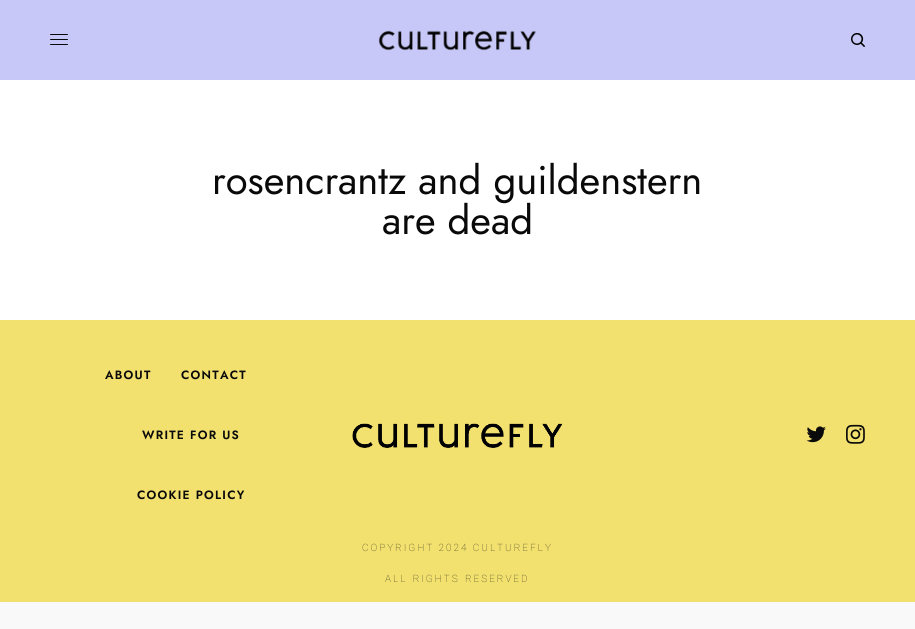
#include <cairo.h>
#include <math.h>
#include <stddef.h>


static void spaced_text(cairo_t *cr, double x, double y, const char *s, double letter, double word) {
    cairo_move_to(cr, x, y);
    while (*s) {
        char ch[5] = {0};
        int n = 0;
        do ch[n++] = *s++; while ((*s & 0xC0) == 0x80);
        cairo_show_text(cr, ch);
        cairo_rel_move_to(cr, letter + word * (*ch == ' '), 0);
    }
}

static void round_rect(cairo_t *cr, double x, double y, double w, double h, double r) {
    cairo_new_sub_path(cr);
    cairo_arc(cr, x + w - r, y + h - r, r, 0, M_PI / 2);
    cairo_arc(cr, x + r, y + h - r, r, M_PI / 2, M_PI);
    cairo_arc(cr, x + r, y + r, r, M_PI, 1.5 * M_PI);
    cairo_arc(cr, x + w - r, y + r, r, 1.5 * M_PI, 2 * M_PI);
    cairo_close_path(cr);
}

static void picture(cairo_t *cr, const char *path, double x, double y, double w, double h) {
    cairo_surface_t *image = cairo_image_surface_create_from_png(path);
    cairo_save(cr);
    cairo_set_source_surface(cr, image, x, y);
    cairo_rectangle(cr, x, y, w, h);
    cairo_fill(cr);
    cairo_restore(cr);
    cairo_surface_destroy(image);
}

int main(void) {
    cairo_surface_t *surface = cairo_image_surface_create(CAIRO_FORMAT_RGB24, 915, 629);
    cairo_t *cr = cairo_create(surface);
    cairo_font_options_t *options = cairo_font_options_create();
    cairo_font_options_set_hint_metrics(options, CAIRO_HINT_METRICS_OFF);
    cairo_font_options_set_hint_style(options, CAIRO_HINT_STYLE_NONE);
    cairo_set_font_options(cr, options);
    cairo_set_miter_limit(cr, 4);
    cairo_set_source_rgb(cr, 0.973, 0.973, 0.973);
    cairo_paint(cr);
    cairo_set_source_rgb(cr, 0.784, 0.784, 0.969);
    cairo_rectangle(cr, 0, 0, 915, 80);
    cairo_fill(cr);
    cairo_set_source_rgb(cr, 0.039, 0.039, 0.039);
    round_rect(cr, 50, 34, 18, 1, 0.5);
    cairo_fill(cr);
    round_rect(cr, 50, 39, 18, 1, 0.5);
    cairo_fill(cr);
    round_rect(cr, 50, 44, 18, 1, 0.5);
    cairo_fill(cr);
    picture(cr, "img1.png", 378, 30, 158, 21);
    picture(cr, "img2.png", 851, 33, 14, 14);
    cairo_set_source_rgb(cr, 1, 1, 1);
    cairo_rectangle(cr, 0, 80, 915, 240);
    cairo_fill(cr);
    cairo_select_font_face(cr, "Jost", CAIRO_FONT_SLANT_NORMAL, CAIRO_FONT_WEIGHT_NORMAL);
    cairo_set_font_size(cr, 40);
    cairo_set_source_rgb(cr, 0.039, 0.039, 0.039);
    cairo_move_to(cr, 212, 194);
    cairo_show_text(cr, "rosencrantz and guildenstern");
    cairo_move_to(cr, 382, 234);
    cairo_show_text(cr, "are dead");
    cairo_set_source_rgb(cr, 0.949, 0.878, 0.435);
    cairo_rectangle(cr, 0, 320, 915, 282);
    cairo_fill(cr);
    cairo_select_font_face(cr, "Jost SemiBold", CAIRO_FONT_SLANT_NORMAL, CAIRO_FONT_WEIGHT_NORMAL);
    cairo_set_font_size(cr, 12);
    cairo_set_source_rgb(cr, 0.039, 0.039, 0.039);
    spaced_text(cr, 105, 379, "ABOUT", 1.25, 0);
    spaced_text(cr, 181, 379, "CONTACT", 1.25, 0);
    spaced_text(cr, 142, 439, "WRITE FOR US", 1.25, 0);
    spaced_text(cr, 137, 499, "COOKIE POLICY", 1.25, 0);
    picture(cr, "img3.png", 352, 423, 211, 25);
    picture(cr, "img4.png", 806, 426, 20, 17);
    picture(cr, "img5.png", 846, 424, 19, 20);
    cairo_select_font_face(cr, "Roboto Thin", CAIRO_FONT_SLANT_NORMAL, CAIRO_FONT_WEIGHT_NORMAL);
    cairo_set_font_size(cr, 10);
    cairo_set_source_rgb(cr, 0.22, 0.208, 0.118);
    spaced_text(cr, 362, 551, "COPYRIGHT 2024 CULTUREFLY", 2, 0);
    spaced_text(cr, 385, 582, "ALL RIGHTS RESERVED", 2, 1);
    cairo_surface_write_to_png(surface, "page.png");
    cairo_font_options_destroy(options);
    cairo_destroy(cr);
    cairo_surface_destroy(surface);
    return 0;
}
